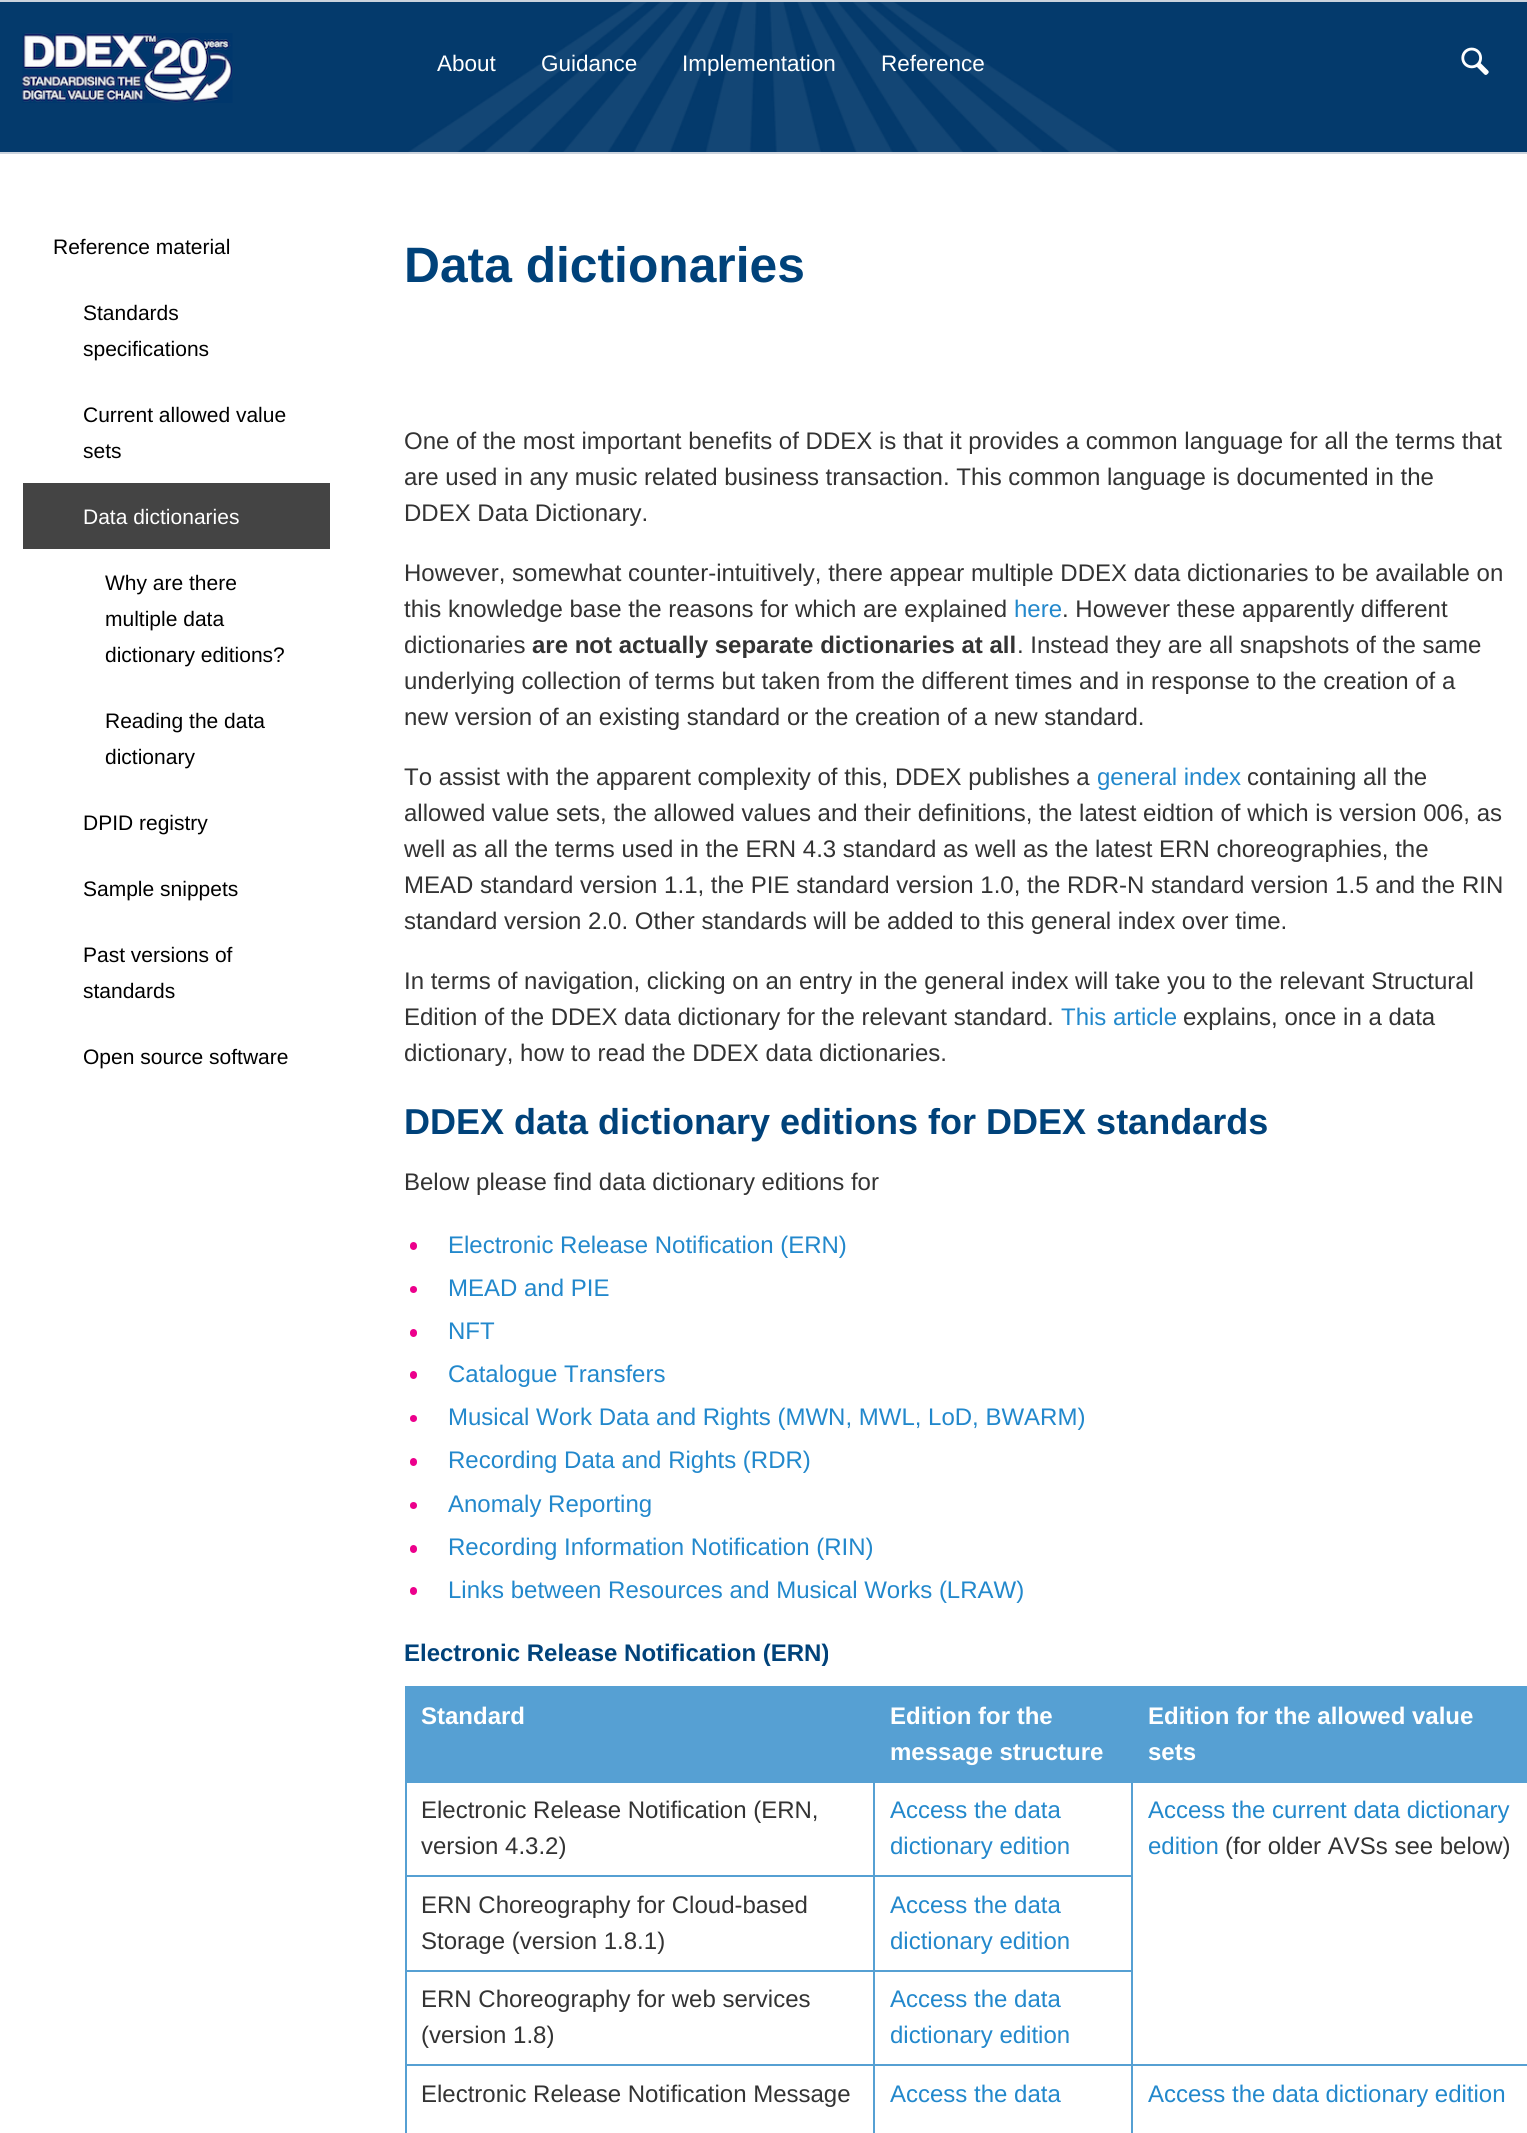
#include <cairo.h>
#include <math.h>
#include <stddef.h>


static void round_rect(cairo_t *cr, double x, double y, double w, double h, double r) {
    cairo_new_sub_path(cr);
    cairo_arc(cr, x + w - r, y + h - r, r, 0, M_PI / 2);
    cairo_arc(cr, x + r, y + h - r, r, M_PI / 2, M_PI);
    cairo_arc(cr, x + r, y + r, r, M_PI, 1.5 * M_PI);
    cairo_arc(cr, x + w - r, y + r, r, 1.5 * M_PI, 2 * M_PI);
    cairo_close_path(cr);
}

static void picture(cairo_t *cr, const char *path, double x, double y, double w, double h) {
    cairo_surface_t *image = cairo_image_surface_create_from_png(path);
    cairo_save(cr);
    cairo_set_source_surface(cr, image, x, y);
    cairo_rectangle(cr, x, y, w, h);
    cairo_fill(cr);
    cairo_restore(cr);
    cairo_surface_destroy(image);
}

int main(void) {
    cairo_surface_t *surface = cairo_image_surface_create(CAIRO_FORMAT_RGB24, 1527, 2133);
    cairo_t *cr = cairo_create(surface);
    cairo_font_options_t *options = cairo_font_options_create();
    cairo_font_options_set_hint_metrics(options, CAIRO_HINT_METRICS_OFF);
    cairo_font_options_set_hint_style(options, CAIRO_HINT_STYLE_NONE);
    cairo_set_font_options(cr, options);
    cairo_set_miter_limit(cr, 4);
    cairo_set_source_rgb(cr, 1, 1, 1);
    cairo_paint(cr);
    cairo_set_source_rgb(cr, 0.016, 0.227, 0.424);
    cairo_rectangle(cr, 0, 2, 1527, 150);
    cairo_fill(cr);
    picture(cr, "img1.png", 407, 2, 713, 150);
    cairo_set_source_rgb(cr, 0.796, 0.827, 0.867);
    cairo_rectangle(cr, 0, 0, 1527, 2);
    cairo_fill(cr);
    cairo_rectangle(cr, 0, 152, 1527, 2);
    cairo_fill(cr);
    picture(cr, "img2.png", 22, 33, 211, 70);
    cairo_select_font_face(cr, "Liberation Sans", CAIRO_FONT_SLANT_NORMAL, CAIRO_FONT_WEIGHT_NORMAL);
    cairo_set_font_size(cr, 22.5);
    cairo_set_source_rgb(cr, 1, 1, 1);
    cairo_move_to(cr, 437, 71);
    cairo_show_text(cr, "About");
    cairo_move_to(cr, 541, 71);
    cairo_show_text(cr, "Guidance");
    cairo_move_to(cr, 682, 71);
    cairo_show_text(cr, "Implementation");
    cairo_move_to(cr, 881, 71);
    cairo_show_text(cr, "Reference");
    picture(cr, "img3.png", 1461, 47, 28, 28);
    cairo_set_font_size(cr, 21);
    cairo_set_source_rgb(cr, 0, 0, 0);
    cairo_move_to(cr, 53, 254);
    cairo_show_text(cr, "Reference material");
    cairo_move_to(cr, 83, 320);
    cairo_show_text(cr, "Standards");
    cairo_move_to(cr, 83, 356);
    cairo_show_text(cr, "specifications");
    cairo_move_to(cr, 83, 422);
    cairo_show_text(cr, "Current allowed value");
    cairo_move_to(cr, 83, 458);
    cairo_show_text(cr, "sets");
    cairo_set_source_rgb(cr, 0.267, 0.267, 0.267);
    cairo_rectangle(cr, 23, 483, 307, 66);
    cairo_fill(cr);
    cairo_set_source_rgb(cr, 1, 1, 1);
    cairo_move_to(cr, 83, 524);
    cairo_show_text(cr, "Data dictionaries");
    cairo_set_source_rgb(cr, 0, 0, 0);
    cairo_move_to(cr, 105, 590);
    cairo_show_text(cr, "Why are there");
    cairo_move_to(cr, 105, 626);
    cairo_show_text(cr, "multiple data");
    cairo_move_to(cr, 105, 662);
    cairo_show_text(cr, "dictionary editions?");
    cairo_move_to(cr, 105, 728);
    cairo_show_text(cr, "Reading the data");
    cairo_move_to(cr, 105, 764);
    cairo_show_text(cr, "dictionary");
    cairo_move_to(cr, 83, 830);
    cairo_show_text(cr, "DPID registry");
    cairo_move_to(cr, 83, 896);
    cairo_show_text(cr, "Sample snippets");
    cairo_move_to(cr, 83, 962);
    cairo_show_text(cr, "Past versions of");
    cairo_move_to(cr, 83, 998);
    cairo_show_text(cr, "standards");
    cairo_move_to(cr, 83, 1064);
    cairo_show_text(cr, "Open source software");
    cairo_select_font_face(cr, "Liberation Sans", CAIRO_FONT_SLANT_NORMAL, CAIRO_FONT_WEIGHT_BOLD);
    cairo_set_font_size(cr, 49.75);
    cairo_set_source_rgb(cr, 0, 0.259, 0.478);
    cairo_move_to(cr, 404, 282);
    cairo_show_text(cr, "Data dictionaries");
    cairo_select_font_face(cr, "Liberation Sans", CAIRO_FONT_SLANT_NORMAL, CAIRO_FONT_WEIGHT_NORMAL);
    cairo_set_font_size(cr, 24);
    cairo_set_source_rgb(cr, 0.2, 0.2, 0.2);
    cairo_move_to(cr, 404, 449);
    cairo_show_text(cr, "One of the most important benefits of DDEX is that it provides a common language for all the terms that");
    cairo_move_to(cr, 404, 485);
    cairo_show_text(cr, "are used in any music related business transaction. This common language is documented in the");
    cairo_move_to(cr, 404, 521);
    cairo_show_text(cr, "DDEX Data Dictionary.");
    cairo_move_to(cr, 404, 581);
    cairo_show_text(cr, "However, somewhat counter-intuitively, there appear multiple DDEX data dictionaries to be available on");
    cairo_move_to(cr, 404, 617);
    cairo_show_text(cr, "this knowledge base the reasons for which are explained");
    cairo_set_source_rgb(cr, 0.133, 0.533, 0.8);
    cairo_move_to(cr, 1014, 617);
    cairo_show_text(cr, "here");
    cairo_set_source_rgb(cr, 0.2, 0.2, 0.2);
    cairo_move_to(cr, 1062, 617);
    cairo_show_text(cr, ". However these apparently different");
    cairo_move_to(cr, 404, 653);
    cairo_show_text(cr, "dictionaries");
    cairo_select_font_face(cr, "Liberation Sans", CAIRO_FONT_SLANT_NORMAL, CAIRO_FONT_WEIGHT_BOLD);
    cairo_move_to(cr, 532, 653);
    cairo_show_text(cr, "are not actually separate dictionaries at all");
    cairo_select_font_face(cr, "Liberation Sans", CAIRO_FONT_SLANT_NORMAL, CAIRO_FONT_WEIGHT_NORMAL);
    cairo_move_to(cr, 1017, 653);
    cairo_show_text(cr, ". Instead they are all snapshots of the same");
    cairo_move_to(cr, 404, 689);
    cairo_show_text(cr, "underlying collection of terms but taken from the different times and in response to the creation of a");
    cairo_move_to(cr, 404, 725);
    cairo_show_text(cr, "new version of an existing standard or the creation of a new standard.");
    cairo_move_to(cr, 404, 785);
    cairo_show_text(cr, "To assist with the apparent complexity of this, DDEX publishes a");
    cairo_set_source_rgb(cr, 0.133, 0.533, 0.8);
    cairo_move_to(cr, 1097, 785);
    cairo_show_text(cr, "general index");
    cairo_set_source_rgb(cr, 0.2, 0.2, 0.2);
    cairo_move_to(cr, 1247, 785);
    cairo_show_text(cr, "containing all the");
    cairo_move_to(cr, 404, 821);
    cairo_show_text(cr, "allowed value sets, the allowed values and their definitions, the latest eidtion of which is version 006, as");
    cairo_move_to(cr, 404, 857);
    cairo_show_text(cr, "well as all the terms used in the ERN 4.3 standard as well as the latest ERN choreographies, the");
    cairo_move_to(cr, 404, 893);
    cairo_show_text(cr, "MEAD standard version 1.1, the PIE standard version 1.0, the RDR-N standard version 1.5 and the RIN");
    cairo_move_to(cr, 404, 929);
    cairo_show_text(cr, "standard version 2.0. Other standards will be added to this general index over time.");
    cairo_move_to(cr, 404, 989);
    cairo_show_text(cr, "In terms of navigation, clicking on an entry in the general index will take you to the relevant Structural");
    cairo_move_to(cr, 404, 1025);
    cairo_show_text(cr, "Edition of the DDEX data dictionary for the relevant standard.");
    cairo_set_source_rgb(cr, 0.133, 0.533, 0.8);
    cairo_move_to(cr, 1061, 1025);
    cairo_show_text(cr, "This article");
    cairo_set_source_rgb(cr, 0.2, 0.2, 0.2);
    cairo_move_to(cr, 1183, 1025);
    cairo_show_text(cr, "explains, once in a data");
    cairo_move_to(cr, 404, 1061);
    cairo_show_text(cr, "dictionary, how to read the DDEX data dictionaries.");
    cairo_select_font_face(cr, "Liberation Sans", CAIRO_FONT_SLANT_NORMAL, CAIRO_FONT_WEIGHT_BOLD);
    cairo_set_font_size(cr, 36);
    cairo_set_source_rgb(cr, 0, 0.259, 0.478);
    cairo_move_to(cr, 404, 1134);
    cairo_show_text(cr, "DDEX data dictionary editions for DDEX standards");
    cairo_select_font_face(cr, "Liberation Sans", CAIRO_FONT_SLANT_NORMAL, CAIRO_FONT_WEIGHT_NORMAL);
    cairo_set_font_size(cr, 24);
    cairo_set_source_rgb(cr, 0.2, 0.2, 0.2);
    cairo_move_to(cr, 404, 1190);
    cairo_show_text(cr, "Below please find data dictionary editions for");
    cairo_set_source_rgb(cr, 0.925, 0, 0.549);
    round_rect(cr, 410, 1242, 7, 8, 3.5);
    cairo_fill(cr);
    cairo_set_source_rgb(cr, 0.133, 0.533, 0.8);
    cairo_move_to(cr, 448, 1253);
    cairo_show_text(cr, "Electronic Release Notification (ERN)");
    cairo_set_source_rgb(cr, 0.925, 0, 0.549);
    cairo_new_path(cr);
    cairo_arc(cr, 413.5, 1289.5, 3.5, 0, 2 * M_PI);
    cairo_fill(cr);
    cairo_set_source_rgb(cr, 0.133, 0.533, 0.8);
    cairo_move_to(cr, 448, 1296);
    cairo_show_text(cr, "MEAD and PIE");
    cairo_set_source_rgb(cr, 0.925, 0, 0.549);
    round_rect(cr, 410, 1329, 7, 8, 3.5);
    cairo_fill(cr);
    cairo_set_source_rgb(cr, 0.133, 0.533, 0.8);
    cairo_move_to(cr, 448, 1339);
    cairo_show_text(cr, "NFT");
    cairo_set_source_rgb(cr, 0.925, 0, 0.549);
    round_rect(cr, 410, 1371, 7, 8, 3.5);
    cairo_fill(cr);
    cairo_set_source_rgb(cr, 0.133, 0.533, 0.8);
    cairo_move_to(cr, 448, 1382);
    cairo_show_text(cr, "Catalogue Transfers");
    cairo_set_source_rgb(cr, 0.925, 0, 0.549);
    cairo_new_path(cr);
    cairo_arc(cr, 413.5, 1418.5, 3.5, 0, 2 * M_PI);
    cairo_fill(cr);
    cairo_set_source_rgb(cr, 0.133, 0.533, 0.8);
    cairo_move_to(cr, 448, 1425);
    cairo_show_text(cr, "Musical Work Data and Rights (MWN, MWL, LoD, BWARM)");
    cairo_set_source_rgb(cr, 0.925, 0, 0.549);
    round_rect(cr, 410, 1458, 7, 8, 3.5);
    cairo_fill(cr);
    cairo_set_source_rgb(cr, 0.133, 0.533, 0.8);
    cairo_move_to(cr, 448, 1468);
    cairo_show_text(cr, "Recording Data and Rights (RDR)");
    cairo_set_source_rgb(cr, 0.925, 0, 0.549);
    cairo_new_path(cr);
    cairo_arc(cr, 413.5, 1505.5, 3.5, 0, 2 * M_PI);
    cairo_fill(cr);
    cairo_set_source_rgb(cr, 0.133, 0.533, 0.8);
    cairo_move_to(cr, 448, 1512);
    cairo_show_text(cr, "Anomaly Reporting");
    cairo_set_source_rgb(cr, 0.925, 0, 0.549);
    round_rect(cr, 410, 1545, 7, 8, 3.5);
    cairo_fill(cr);
    cairo_set_source_rgb(cr, 0.133, 0.533, 0.8);
    cairo_move_to(cr, 448, 1555);
    cairo_show_text(cr, "Recording Information Notification (RIN)");
    cairo_set_source_rgb(cr, 0.925, 0, 0.549);
    round_rect(cr, 410, 1587, 7, 8, 3.5);
    cairo_fill(cr);
    cairo_set_source_rgb(cr, 0.133, 0.533, 0.8);
    cairo_move_to(cr, 448, 1598);
    cairo_show_text(cr, "Links between Resources and Musical Works (LRAW)");
    cairo_select_font_face(cr, "Liberation Sans", CAIRO_FONT_SLANT_NORMAL, CAIRO_FONT_WEIGHT_BOLD);
    cairo_set_source_rgb(cr, 0, 0.259, 0.478);
    cairo_move_to(cr, 404, 1661);
    cairo_show_text(cr, "Electronic Release Notification (ERN)");
    cairo_set_source_rgb(cr, 0.337, 0.627, 0.827);
    cairo_rectangle(cr, 405, 1688, 1122, 93);
    cairo_fill(cr);
    cairo_set_source_rgb(cr, 1, 1, 1);
    cairo_move_to(cr, 421, 1724);
    cairo_show_text(cr, "Standard");
    cairo_move_to(cr, 890, 1724);
    cairo_show_text(cr, "Edition for the");
    cairo_move_to(cr, 890, 1760);
    cairo_show_text(cr, "message structure");
    cairo_set_source_rgb(cr, 0.337, 0.627, 0.827);
    cairo_rectangle(cr, 405, 1686, 1122, 2);
    cairo_fill(cr);
    cairo_set_source_rgb(cr, 1, 1, 1);
    cairo_move_to(cr, 1148, 1724);
    cairo_show_text(cr, "Edition for the allowed value");
    cairo_move_to(cr, 1148, 1760);
    cairo_show_text(cr, "sets");
    cairo_set_source_rgb(cr, 0.337, 0.627, 0.827);
    cairo_rectangle(cr, 1131, 1781, 396, 2);
    cairo_fill(cr);
    cairo_rectangle(cr, 873, 1875, 260, 2);
    cairo_fill(cr);
    cairo_rectangle(cr, 873, 1970, 260, 2);
    cairo_fill(cr);
    cairo_rectangle(cr, 1131, 2064, 396, 2);
    cairo_fill(cr);
    cairo_rectangle(cr, 1131, 2064, 2, 69);
    cairo_fill(cr);
    cairo_rectangle(cr, 873, 2064, 260, 2);
    cairo_fill(cr);
    cairo_rectangle(cr, 1131, 1781, 2, 285);
    cairo_fill(cr);
    cairo_rectangle(cr, 873, 1781, 260, 2);
    cairo_fill(cr);
    cairo_rectangle(cr, 873, 2064, 2, 69);
    cairo_fill(cr);
    cairo_rectangle(cr, 405, 2064, 470, 2);
    cairo_fill(cr);
    cairo_rectangle(cr, 873, 1970, 2, 96);
    cairo_fill(cr);
    cairo_rectangle(cr, 405, 1970, 470, 2);
    cairo_fill(cr);
    cairo_rectangle(cr, 873, 1875, 2, 96);
    cairo_fill(cr);
    cairo_rectangle(cr, 405, 1875, 470, 2);
    cairo_fill(cr);
    cairo_rectangle(cr, 873, 1781, 2, 96);
    cairo_fill(cr);
    cairo_rectangle(cr, 405, 1781, 470, 2);
    cairo_fill(cr);
    cairo_rectangle(cr, 405, 2064, 2, 69);
    cairo_fill(cr);
    cairo_rectangle(cr, 405, 1970, 2, 96);
    cairo_fill(cr);
    cairo_rectangle(cr, 405, 1875, 2, 96);
    cairo_fill(cr);
    cairo_rectangle(cr, 405, 1781, 2, 96);
    cairo_fill(cr);
    cairo_select_font_face(cr, "Liberation Sans", CAIRO_FONT_SLANT_NORMAL, CAIRO_FONT_WEIGHT_NORMAL);
    cairo_set_source_rgb(cr, 0.2, 0.2, 0.2);
    cairo_move_to(cr, 421, 1818);
    cairo_show_text(cr, "Electronic Release Notification (ERN,");
    cairo_move_to(cr, 421, 1854);
    cairo_show_text(cr, "version 4.3.2)");
    cairo_set_source_rgb(cr, 0.133, 0.533, 0.8);
    cairo_move_to(cr, 890, 1818);
    cairo_show_text(cr, "Access the data");
    cairo_move_to(cr, 890, 1854);
    cairo_show_text(cr, "dictionary edition");
    cairo_move_to(cr, 1148, 1818);
    cairo_show_text(cr, "Access the current data dictionary");
    cairo_move_to(cr, 1148, 1854);
    cairo_show_text(cr, "edition");
    cairo_set_source_rgb(cr, 0.2, 0.2, 0.2);
    cairo_move_to(cr, 1225, 1854);
    cairo_show_text(cr, "(for older AVSs see below)");
    cairo_move_to(cr, 421, 1913);
    cairo_show_text(cr, "ERN Choreography for Cloud-based");
    cairo_move_to(cr, 421, 1949);
    cairo_show_text(cr, "Storage (version 1.8.1)");
    cairo_set_source_rgb(cr, 0.133, 0.533, 0.8);
    cairo_move_to(cr, 890, 1913);
    cairo_show_text(cr, "Access the data");
    cairo_move_to(cr, 890, 1949);
    cairo_show_text(cr, "dictionary edition");
    cairo_set_source_rgb(cr, 0.2, 0.2, 0.2);
    cairo_move_to(cr, 421, 2007);
    cairo_show_text(cr, "ERN Choreography for web services");
    cairo_move_to(cr, 421, 2043);
    cairo_show_text(cr, "(version 1.8)");
    cairo_set_source_rgb(cr, 0.133, 0.533, 0.8);
    cairo_move_to(cr, 890, 2007);
    cairo_show_text(cr, "Access the data");
    cairo_move_to(cr, 890, 2043);
    cairo_show_text(cr, "dictionary edition");
    cairo_set_source_rgb(cr, 0.2, 0.2, 0.2);
    cairo_move_to(cr, 421, 2102);
    cairo_show_text(cr, "Electronic Release Notification Message");
    cairo_set_source_rgb(cr, 0.133, 0.533, 0.8);
    cairo_move_to(cr, 890, 2102);
    cairo_show_text(cr, "Access the data");
    cairo_move_to(cr, 1148, 2102);
    cairo_show_text(cr, "Access the data dictionary edition");
    cairo_surface_write_to_png(surface, "page.png");
    cairo_font_options_destroy(options);
    cairo_destroy(cr);
    cairo_surface_destroy(surface);
    return 0;
}
